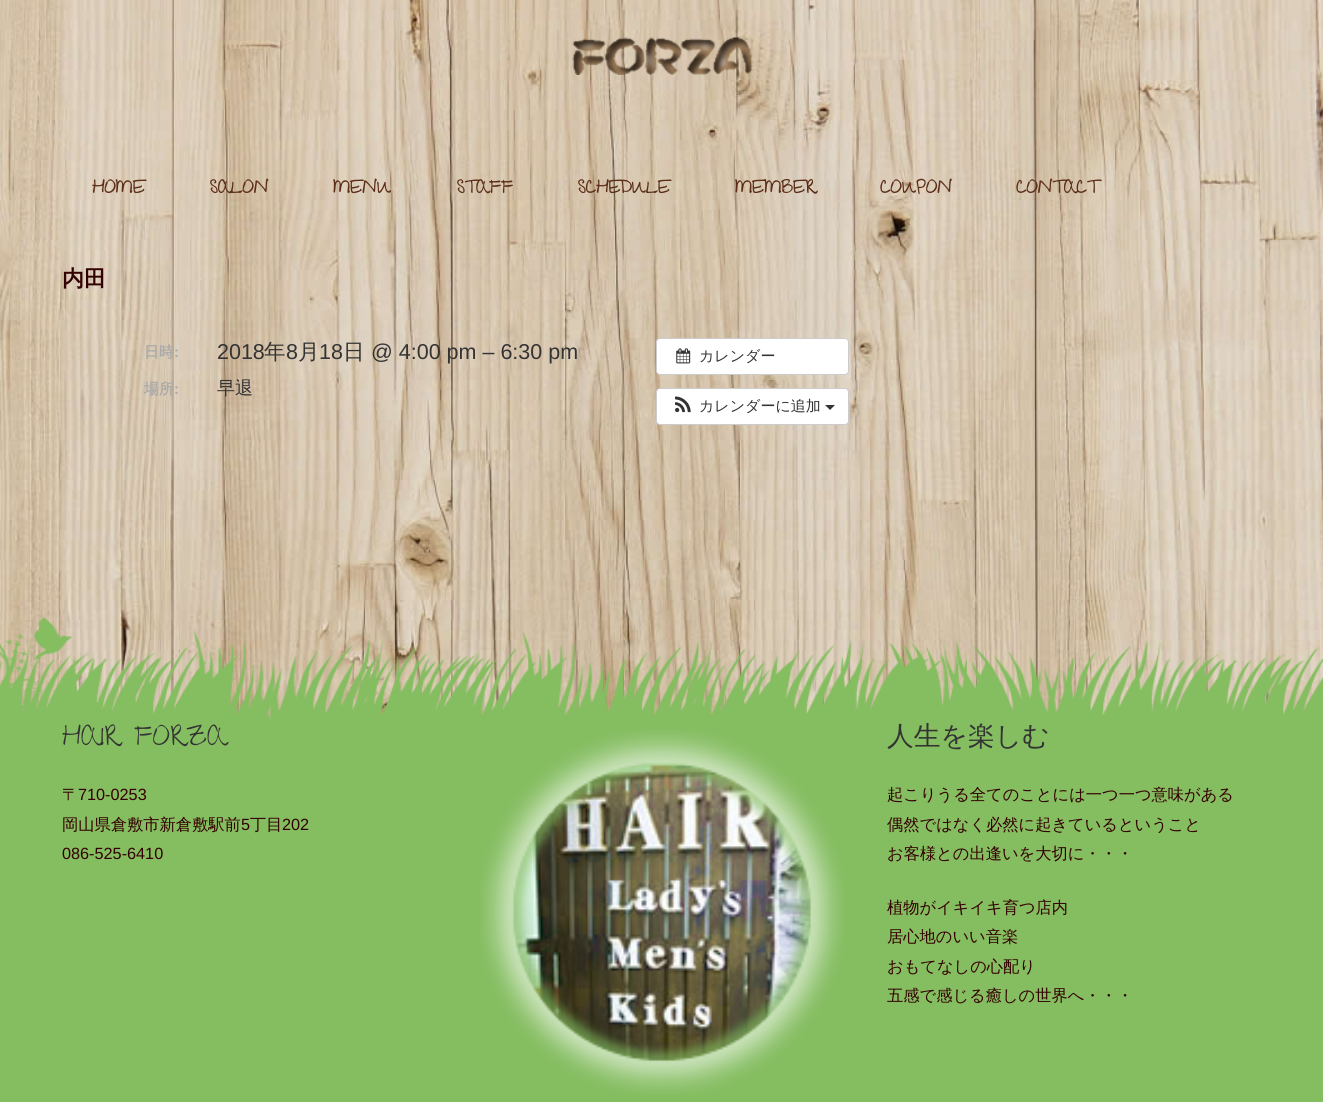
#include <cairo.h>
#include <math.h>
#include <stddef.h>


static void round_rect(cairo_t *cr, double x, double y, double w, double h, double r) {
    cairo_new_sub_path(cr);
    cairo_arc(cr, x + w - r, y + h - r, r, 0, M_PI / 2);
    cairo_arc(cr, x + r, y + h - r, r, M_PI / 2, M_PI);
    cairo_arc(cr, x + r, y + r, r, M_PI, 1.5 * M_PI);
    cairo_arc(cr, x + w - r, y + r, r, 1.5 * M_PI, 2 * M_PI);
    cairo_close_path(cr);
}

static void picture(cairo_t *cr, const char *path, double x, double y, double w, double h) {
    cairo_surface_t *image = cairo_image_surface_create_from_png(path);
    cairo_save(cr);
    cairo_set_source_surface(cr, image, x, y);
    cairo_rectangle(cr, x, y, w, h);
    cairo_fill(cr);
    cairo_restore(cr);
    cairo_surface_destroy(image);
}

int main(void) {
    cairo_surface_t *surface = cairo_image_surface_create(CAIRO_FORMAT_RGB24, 1323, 1102);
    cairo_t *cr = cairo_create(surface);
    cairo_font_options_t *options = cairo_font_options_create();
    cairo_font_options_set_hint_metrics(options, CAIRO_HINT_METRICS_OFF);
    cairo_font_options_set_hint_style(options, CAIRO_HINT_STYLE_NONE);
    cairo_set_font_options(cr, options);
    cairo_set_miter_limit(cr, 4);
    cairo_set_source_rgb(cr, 1, 1, 1);
    cairo_paint(cr);
    picture(cr, "img1.png", 0, 0, 1323, 721);
    picture(cr, "img2.png", 572, 37, 181, 38);
    cairo_select_font_face(cr, "Give You Glory", CAIRO_FONT_SLANT_NORMAL, CAIRO_FONT_WEIGHT_BOLD);
    cairo_set_font_size(cr, 17.5);
    cairo_set_source_rgb(cr, 0.361, 0.18, 0.094);
    cairo_move_to(cr, 92, 193);
    cairo_show_text(cr, "HOME");
    cairo_move_to(cr, 209, 193);
    cairo_show_text(cr, "SALON");
    cairo_move_to(cr, 333, 193);
    cairo_show_text(cr, "MENU");
    cairo_move_to(cr, 456, 193);
    cairo_show_text(cr, "STAFF");
    cairo_move_to(cr, 577, 193);
    cairo_show_text(cr, "SCHEDULE");
    cairo_move_to(cr, 735, 193);
    cairo_show_text(cr, "MEMBER");
    cairo_move_to(cr, 880, 193);
    cairo_show_text(cr, "COUPON");
    cairo_move_to(cr, 1016, 193);
    cairo_show_text(cr, "CONTACT");
    cairo_select_font_face(cr, "WenQuanYi Zen Hei", CAIRO_FONT_SLANT_NORMAL, CAIRO_FONT_WEIGHT_BOLD);
    cairo_set_font_size(cr, 22);
    cairo_set_source_rgb(cr, 0.2, 0, 0);
    cairo_move_to(cr, 62, 286);
    cairo_show_text(cr, "内田");
    cairo_set_font_size(cr, 15);
    cairo_set_source_rgb(cr, 0.667, 0.667, 0.667);
    cairo_move_to(cr, 144, 357);
    cairo_show_text(cr, "日時");
    cairo_select_font_face(cr, "Liberation Sans", CAIRO_FONT_SLANT_NORMAL, CAIRO_FONT_WEIGHT_BOLD);
    cairo_move_to(cr, 174, 357);
    cairo_show_text(cr, ":");
    cairo_select_font_face(cr, "Liberation Sans", CAIRO_FONT_SLANT_NORMAL, CAIRO_FONT_WEIGHT_NORMAL);
    cairo_set_font_size(cr, 21.5);
    cairo_set_source_rgb(cr, 0.2, 0.2, 0.2);
    cairo_move_to(cr, 217, 359);
    cairo_show_text(cr, "2018");
    cairo_select_font_face(cr, "WenQuanYi Zen Hei Medium", CAIRO_FONT_SLANT_NORMAL, CAIRO_FONT_WEIGHT_NORMAL);
    cairo_move_to(cr, 264, 359);
    cairo_show_text(cr, "年");
    cairo_select_font_face(cr, "Liberation Sans", CAIRO_FONT_SLANT_NORMAL, CAIRO_FONT_WEIGHT_NORMAL);
    cairo_move_to(cr, 286, 359);
    cairo_show_text(cr, "8");
    cairo_select_font_face(cr, "WenQuanYi Zen Hei Medium", CAIRO_FONT_SLANT_NORMAL, CAIRO_FONT_WEIGHT_NORMAL);
    cairo_move_to(cr, 298, 359);
    cairo_show_text(cr, "月");
    cairo_select_font_face(cr, "Liberation Sans", CAIRO_FONT_SLANT_NORMAL, CAIRO_FONT_WEIGHT_NORMAL);
    cairo_move_to(cr, 319, 359);
    cairo_show_text(cr, "18");
    cairo_select_font_face(cr, "WenQuanYi Zen Hei Medium", CAIRO_FONT_SLANT_NORMAL, CAIRO_FONT_WEIGHT_NORMAL);
    cairo_move_to(cr, 343, 359);
    cairo_show_text(cr, "日");
    cairo_select_font_face(cr, "Liberation Sans", CAIRO_FONT_SLANT_NORMAL, CAIRO_FONT_WEIGHT_NORMAL);
    cairo_move_to(cr, 371, 359);
    cairo_show_text(cr, "@ 4:00 pm – 6:30 pm");
    cairo_select_font_face(cr, "WenQuanYi Zen Hei", CAIRO_FONT_SLANT_NORMAL, CAIRO_FONT_WEIGHT_BOLD);
    cairo_set_font_size(cr, 15);
    cairo_set_source_rgb(cr, 0.667, 0.667, 0.667);
    cairo_move_to(cr, 144, 394);
    cairo_show_text(cr, "場所");
    cairo_select_font_face(cr, "Liberation Sans", CAIRO_FONT_SLANT_NORMAL, CAIRO_FONT_WEIGHT_BOLD);
    cairo_move_to(cr, 174, 394);
    cairo_show_text(cr, ":");
    cairo_select_font_face(cr, "WenQuanYi Zen Hei Medium", CAIRO_FONT_SLANT_NORMAL, CAIRO_FONT_WEIGHT_NORMAL);
    cairo_set_font_size(cr, 18);
    cairo_set_source_rgb(cr, 0.2, 0.2, 0.2);
    cairo_move_to(cr, 217, 394);
    cairo_show_text(cr, "早退");
    cairo_set_source_rgb(cr, 1, 1, 1);
    round_rect(cr, 656.5, 338.5, 192, 36, 3.5);
    cairo_fill_preserve(cr);
    cairo_set_source_rgb(cr, 0.8, 0.8, 0.8);
    cairo_set_line_width(cr, 1);
    cairo_stroke(cr);
    picture(cr, "img3.png", 676, 348, 15, 16);
    cairo_set_font_size(cr, 15);
    cairo_set_source_rgb(cr, 0.2, 0.2, 0.2);
    cairo_move_to(cr, 699, 361);
    cairo_show_text(cr, "カレンダー");
    cairo_set_source_rgb(cr, 1, 1, 1);
    round_rect(cr, 656.5, 388.5, 192, 36, 3.5);
    cairo_fill_preserve(cr);
    cairo_set_source_rgb(cr, 0.8, 0.8, 0.8);
    cairo_stroke(cr);
    picture(cr, "img4.png", 675, 396, 16, 17);
    cairo_set_source_rgb(cr, 0.2, 0.2, 0.2);
    cairo_move_to(cr, 699, 411);
    cairo_show_text(cr, "カレンダーに追加");
    cairo_new_path(cr);
    cairo_move_to(cr, 825, 405);
    cairo_line_to(cr, 835, 405);
    cairo_line_to(cr, 830, 410);
    cairo_close_path(cr);
    cairo_fill(cr);
    picture(cr, "img5.png", 0, 617, 1323, 485);
    cairo_select_font_face(cr, "Give You Glory", CAIRO_FONT_SLANT_NORMAL, CAIRO_FONT_WEIGHT_NORMAL);
    cairo_set_font_size(cr, 26.75);
    cairo_move_to(cr, 62, 745);
    cairo_show_text(cr, "HAIR FORZA");
    cairo_select_font_face(cr, "WenQuanYi Zen Hei Medium", CAIRO_FONT_SLANT_NORMAL, CAIRO_FONT_WEIGHT_NORMAL);
    cairo_set_font_size(cr, 16.25);
    cairo_set_source_rgb(cr, 0.2, 0, 0);
    cairo_move_to(cr, 62, 800);
    cairo_show_text(cr, "〒");
    cairo_select_font_face(cr, "Liberation Sans", CAIRO_FONT_SLANT_NORMAL, CAIRO_FONT_WEIGHT_NORMAL);
    cairo_move_to(cr, 78, 800);
    cairo_show_text(cr, "710-0253");
    cairo_select_font_face(cr, "WenQuanYi Zen Hei Medium", CAIRO_FONT_SLANT_NORMAL, CAIRO_FONT_WEIGHT_NORMAL);
    cairo_move_to(cr, 62, 830);
    cairo_show_text(cr, "岡山県倉敷市新倉敷駅前");
    cairo_select_font_face(cr, "Liberation Sans", CAIRO_FONT_SLANT_NORMAL, CAIRO_FONT_WEIGHT_NORMAL);
    cairo_move_to(cr, 241, 830);
    cairo_show_text(cr, "5");
    cairo_select_font_face(cr, "WenQuanYi Zen Hei Medium", CAIRO_FONT_SLANT_NORMAL, CAIRO_FONT_WEIGHT_NORMAL);
    cairo_move_to(cr, 250, 830);
    cairo_show_text(cr, "丁目");
    cairo_select_font_face(cr, "Liberation Sans", CAIRO_FONT_SLANT_NORMAL, CAIRO_FONT_WEIGHT_NORMAL);
    cairo_move_to(cr, 282, 830);
    cairo_show_text(cr, "202");
    cairo_move_to(cr, 62, 859);
    cairo_show_text(cr, "086-525-6410");
    picture(cr, "img6.png", 480, 730, 364, 364);
    cairo_select_font_face(cr, "WenQuanYi Zen Hei Medium", CAIRO_FONT_SLANT_NORMAL, CAIRO_FONT_WEIGHT_NORMAL);
    cairo_set_font_size(cr, 26.75);
    cairo_set_source_rgb(cr, 0.2, 0.2, 0.2);
    cairo_move_to(cr, 887, 745);
    cairo_show_text(cr, "人生を楽しむ");
    cairo_set_font_size(cr, 16.25);
    cairo_set_source_rgb(cr, 0.2, 0, 0);
    cairo_move_to(cr, 887, 800);
    cairo_show_text(cr, "起こりうる全てのことには一つ一つ意味がある");
    cairo_move_to(cr, 887, 830);
    cairo_show_text(cr, "偶然ではなく必然に起きているということ");
    cairo_move_to(cr, 887, 859);
    cairo_show_text(cr, "お客様との出逢いを大切に・・・");
    cairo_move_to(cr, 887, 913);
    cairo_show_text(cr, "植物がイキイキ育つ店内");
    cairo_move_to(cr, 887, 942);
    cairo_show_text(cr, "居心地のいい音楽");
    cairo_move_to(cr, 887, 972);
    cairo_show_text(cr, "おもてなしの心配り");
    cairo_move_to(cr, 887, 1001);
    cairo_show_text(cr, "五感で感じる癒しの世界へ・・・");
    cairo_surface_write_to_png(surface, "page.png");
    cairo_font_options_destroy(options);
    cairo_destroy(cr);
    cairo_surface_destroy(surface);
    return 0;
}
